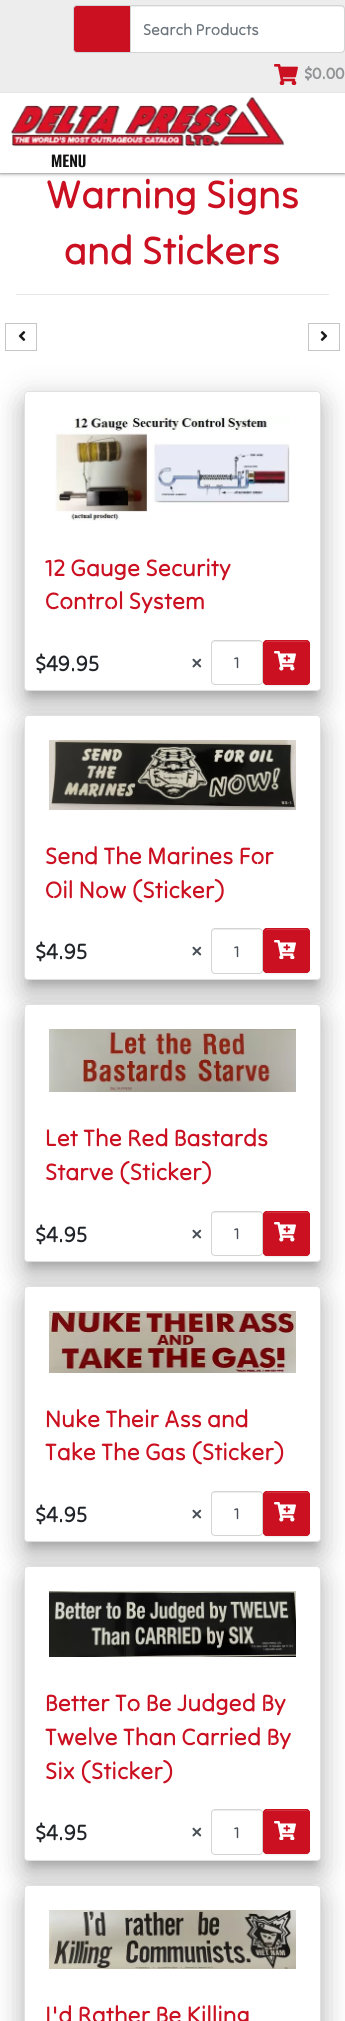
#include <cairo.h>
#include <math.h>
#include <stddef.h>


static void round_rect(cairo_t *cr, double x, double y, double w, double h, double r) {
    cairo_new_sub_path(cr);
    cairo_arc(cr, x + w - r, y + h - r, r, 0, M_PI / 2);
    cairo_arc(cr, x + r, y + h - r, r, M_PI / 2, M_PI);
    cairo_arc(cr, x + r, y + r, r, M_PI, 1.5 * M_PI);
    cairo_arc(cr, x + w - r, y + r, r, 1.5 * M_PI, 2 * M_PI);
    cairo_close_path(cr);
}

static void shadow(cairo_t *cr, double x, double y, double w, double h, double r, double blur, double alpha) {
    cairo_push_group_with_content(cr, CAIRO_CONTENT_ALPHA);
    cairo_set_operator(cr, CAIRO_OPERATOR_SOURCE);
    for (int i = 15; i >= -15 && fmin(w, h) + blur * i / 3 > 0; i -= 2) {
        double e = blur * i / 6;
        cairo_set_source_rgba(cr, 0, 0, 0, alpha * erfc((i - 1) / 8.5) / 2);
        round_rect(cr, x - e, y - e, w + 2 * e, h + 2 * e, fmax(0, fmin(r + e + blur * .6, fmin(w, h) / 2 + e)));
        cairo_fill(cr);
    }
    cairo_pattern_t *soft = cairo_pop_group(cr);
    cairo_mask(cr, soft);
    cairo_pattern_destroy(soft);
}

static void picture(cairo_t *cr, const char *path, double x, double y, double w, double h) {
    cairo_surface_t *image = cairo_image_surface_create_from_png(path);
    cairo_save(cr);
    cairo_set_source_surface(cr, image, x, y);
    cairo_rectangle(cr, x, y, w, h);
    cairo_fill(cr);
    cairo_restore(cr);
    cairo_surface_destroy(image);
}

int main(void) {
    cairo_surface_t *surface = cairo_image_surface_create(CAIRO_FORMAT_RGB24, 345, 2021);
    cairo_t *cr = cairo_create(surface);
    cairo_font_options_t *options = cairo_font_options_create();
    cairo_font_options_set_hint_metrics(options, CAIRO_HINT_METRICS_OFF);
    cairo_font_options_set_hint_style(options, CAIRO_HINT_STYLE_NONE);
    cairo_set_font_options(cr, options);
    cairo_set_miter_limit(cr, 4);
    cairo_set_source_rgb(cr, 1, 1, 1);
    cairo_paint(cr);
    cairo_set_source_rgb(cr, 0, 0, 0);
    shadow(cr, 0, 92, 345, 80, 0, 2.5, 1);
    cairo_set_source_rgb(cr, 0.929, 0.929, 0.929);
    cairo_rectangle(cr, 0, 0, 345, 92);
    cairo_fill(cr);
    cairo_set_source_rgb(cr, 0.91, 0.91, 0.91);
    cairo_rectangle(cr, 0, 92, 345, 1);
    cairo_fill(cr);
    cairo_set_source_rgb(cr, 0.792, 0.063, 0.129);
    cairo_new_path(cr);
    cairo_move_to(cr, 77, 5.5);
    cairo_line_to(cr, 130.5, 5.5);
    cairo_line_to(cr, 130.5, 52.5);
    cairo_line_to(cr, 77, 52.5);
    cairo_curve_to(cr, 75, 52.5, 73.5, 51, 73.5, 49);
    cairo_line_to(cr, 73.5, 9);
    cairo_curve_to(cr, 73.5, 7, 75, 5.5, 77, 5.5);
    cairo_close_path(cr);
    cairo_fill_preserve(cr);
    cairo_set_source_rgb(cr, 0.808, 0.831, 0.855);
    cairo_set_line_width(cr, 1);
    cairo_stroke(cr);
    cairo_set_source_rgb(cr, 1, 1, 1);
    cairo_new_path(cr);
    cairo_move_to(cr, 131, 6);
    cairo_line_to(cr, 341, 6);
    cairo_curve_to(cr, 342.5, 6, 344, 7.5, 344, 9);
    cairo_line_to(cr, 344, 49);
    cairo_curve_to(cr, 344, 50.5, 342.5, 52, 341, 52);
    cairo_line_to(cr, 131, 52);
    cairo_close_path(cr);
    cairo_fill(cr);
    cairo_set_source_rgba(cr, 0, 0, 0, 0.07);
    cairo_new_path(cr);
    cairo_move_to(cr, 131, 7);
    cairo_line_to(cr, 341, 7);
    cairo_curve_to(cr, 343, 7, 344, 8, 344, 10);
    cairo_line_to(cr, 344, 9);
    cairo_curve_to(cr, 344, 7, 343, 6, 341, 6);
    cairo_line_to(cr, 131, 6);
    cairo_close_path(cr);
    cairo_fill(cr);
    cairo_new_path(cr);
    cairo_move_to(cr, 130.5, 5.5);
    cairo_line_to(cr, 341, 5.5);
    cairo_curve_to(cr, 343, 5.5, 344.5, 7, 344.5, 9);
    cairo_line_to(cr, 344.5, 49);
    cairo_curve_to(cr, 344.5, 51, 343, 52.5, 341, 52.5);
    cairo_line_to(cr, 130.5, 52.5);
    cairo_close_path(cr);
    cairo_set_source_rgb(cr, 0.831, 0.831, 0.831);
    cairo_stroke(cr);
    cairo_select_font_face(cr, "Tilt Neon", CAIRO_FONT_SLANT_NORMAL, CAIRO_FONT_WEIGHT_NORMAL);
    cairo_set_font_size(cr, 16);
    cairo_set_source_rgb(cr, 0.424, 0.459, 0.49);
    cairo_move_to(cr, 143, 35);
    cairo_show_text(cr, "Search Products");
    picture(cr, "img1.png", 274, 64, 24, 21);
    cairo_select_font_face(cr, "Tilt Neon", CAIRO_FONT_SLANT_NORMAL, CAIRO_FONT_WEIGHT_BOLD);
    cairo_set_source_rgb(cr, 0.573, 0.584, 0.588);
    cairo_move_to(cr, 304, 79);
    cairo_show_text(cr, "$0.00");
    cairo_set_source_rgb(cr, 1, 1, 1);
    cairo_rectangle(cr, 0, 93, 345, 80);
    cairo_fill(cr);
    picture(cr, "img2.png", 11, 97, 274, 50);
    cairo_select_font_face(cr, "Alumni Sans", CAIRO_FONT_SLANT_NORMAL, CAIRO_FONT_WEIGHT_BOLD);
    cairo_set_font_size(cr, 21);
    cairo_set_source_rgb(cr, 0.071, 0.071, 0.071);
    cairo_move_to(cr, 51, 167);
    cairo_show_text(cr, "MENU");
    cairo_select_font_face(cr, "Tilt Neon", CAIRO_FONT_SLANT_NORMAL, CAIRO_FONT_WEIGHT_NORMAL);
    cairo_set_font_size(cr, 40);
    cairo_set_source_rgb(cr, 0.792, 0.063, 0.129);
    cairo_move_to(cr, 46, 208);
    cairo_show_text(cr, "Warning Signs");
    cairo_move_to(cr, 64, 264);
    cairo_show_text(cr, "and Stickers");
    cairo_set_source_rgb(cr, 0.902, 0.902, 0.902);
    cairo_rectangle(cr, 16, 294, 313, 1);
    cairo_fill(cr);
    cairo_set_source_rgb(cr, 0, 0, 0);
    shadow(cr, 19, 392, 307, 310, 9, 15, 0.12);
    cairo_rectangle(cr, 5.5, 323.5, 31, 27);
    cairo_set_source_rgb(cr, 0.776, 0.776, 0.776);
    cairo_stroke(cr);
    picture(cr, "img3.png", 18, 331, 8, 10);
    cairo_rectangle(cr, 308.5, 323.5, 31, 27);
    cairo_stroke(cr);
    picture(cr, "img4.png", 320, 331, 8, 10);
    cairo_set_source_rgb(cr, 0, 0, 0);
    shadow(cr, 29, 404, 287, 290, 0, 5, 0.2);
    shadow(cr, 22, 405, 301, 304, 6, 12, 0.14);
    cairo_set_source_rgb(cr, 1, 1, 1);
    round_rect(cr, 24, 391, 297, 300, 4);
    cairo_fill(cr);
    round_rect(cr, 24.5, 391.5, 296, 299, 3.5);
    cairo_set_source_rgba(cr, 0, 0, 0, 0.12);
    cairo_stroke(cr);
    picture(cr, "img5.png", 55, 416, 235, 105);
    cairo_set_font_size(cr, 24);
    cairo_set_source_rgb(cr, 0.792, 0.063, 0.129);
    cairo_move_to(cr, 45, 576);
    cairo_show_text(cr, "12 Gauge Security");
    cairo_move_to(cr, 45, 609);
    cairo_show_text(cr, "Control System");
    cairo_set_source_rgb(cr, 1, 1, 1);
    cairo_new_path(cr);
    cairo_move_to(cr, 25, 635);
    cairo_line_to(cr, 320, 635);
    cairo_line_to(cr, 320, 687);
    cairo_curve_to(cr, 320, 688.5, 318.5, 690, 317, 690);
    cairo_line_to(cr, 28, 690);
    cairo_curve_to(cr, 26.5, 690, 25, 688.5, 25, 687);
    cairo_close_path(cr);
    cairo_fill(cr);
    cairo_set_font_size(cr, 22.5);
    cairo_set_source_rgb(cr, 0.129, 0.145, 0.161);
    cairo_move_to(cr, 35, 671);
    cairo_show_text(cr, "$49.95");
    cairo_set_source_rgb(cr, 0.286, 0.314, 0.341);
    cairo_move_to(cr, 191, 670);
    cairo_show_text(cr, "×");
    cairo_set_source_rgb(cr, 0.925, 0.925, 0.925);
    cairo_new_path(cr);
    cairo_move_to(cr, 215, 642);
    cairo_line_to(cr, 259, 642);
    cairo_curve_to(cr, 261, 642, 262, 643, 262, 645);
    cairo_curve_to(cr, 262, 639, 256, 641, 252, 641);
    cairo_line_to(cr, 222, 641);
    cairo_curve_to(cr, 218, 641, 212, 639, 212, 645);
    cairo_curve_to(cr, 212, 643, 213, 642, 215, 642);
    cairo_close_path(cr);
    cairo_fill(cr);
    round_rect(cr, 211.5, 640.5, 51, 44, 3.5);
    cairo_set_source_rgb(cr, 0.831, 0.831, 0.831);
    cairo_stroke(cr);
    cairo_set_font_size(cr, 16);
    cairo_set_source_rgb(cr, 0.286, 0.314, 0.341);
    cairo_move_to(cr, 234, 668);
    cairo_show_text(cr, "1");
    cairo_set_source_rgb(cr, 0, 0, 0);
    shadow(cr, 263, 641, 47, 45, 4, 0.5, 0.07);
    cairo_set_source_rgb(cr, 0.792, 0.063, 0.129);
    round_rect(cr, 263, 640, 47, 45, 4);
    cairo_fill(cr);
    cairo_set_source_rgb(cr, 0.824, 0.204, 0.259);
    cairo_new_path(cr);
    cairo_move_to(cr, 267, 642);
    cairo_line_to(cr, 306, 642);
    cairo_curve_to(cr, 308, 642, 309, 643, 309, 645);
    cairo_curve_to(cr, 309, 640, 304, 641, 300, 641);
    cairo_line_to(cr, 274, 641);
    cairo_curve_to(cr, 269, 641, 264, 640, 264, 645);
    cairo_curve_to(cr, 264, 643, 265, 642, 267, 642);
    cairo_close_path(cr);
    cairo_fill(cr);
    round_rect(cr, 263.5, 640.5, 46, 44, 3.5);
    cairo_set_source_rgb(cr, 0.792, 0.063, 0.129);
    cairo_stroke(cr);
    picture(cr, "img6.png", 274, 651, 22, 20);
    cairo_set_source_rgb(cr, 0, 0, 0);
    shadow(cr, 29, 728, 287, 255, 0, 5, 0.2);
    shadow(cr, 19, 716, 307, 275, 9, 15, 0.12);
    shadow(cr, 22, 729, 301, 269, 6, 12, 0.14);
    cairo_set_source_rgb(cr, 1, 1, 1);
    round_rect(cr, 24, 715, 297, 265, 4);
    cairo_fill(cr);
    round_rect(cr, 24.5, 715.5, 296, 264, 3.5);
    cairo_set_source_rgba(cr, 0, 0, 0, 0.12);
    cairo_stroke(cr);
    picture(cr, "img7.png", 49, 740, 247, 70);
    cairo_set_font_size(cr, 24);
    cairo_set_source_rgb(cr, 0.792, 0.063, 0.129);
    cairo_move_to(cr, 45, 864);
    cairo_show_text(cr, "Send The Marines For");
    cairo_move_to(cr, 45, 898);
    cairo_show_text(cr, "Oil Now (Sticker)");
    cairo_set_source_rgb(cr, 1, 1, 1);
    cairo_new_path(cr);
    cairo_move_to(cr, 25, 923);
    cairo_line_to(cr, 320, 923);
    cairo_line_to(cr, 320, 976);
    cairo_curve_to(cr, 320, 977.5, 318.5, 979, 317, 979);
    cairo_line_to(cr, 28, 979);
    cairo_curve_to(cr, 26.5, 979, 25, 977.5, 25, 976);
    cairo_close_path(cr);
    cairo_fill(cr);
    cairo_set_font_size(cr, 22.5);
    cairo_set_source_rgb(cr, 0.129, 0.145, 0.161);
    cairo_move_to(cr, 35, 959);
    cairo_show_text(cr, "$4.95");
    cairo_set_source_rgb(cr, 0.286, 0.314, 0.341);
    cairo_move_to(cr, 191, 958);
    cairo_show_text(cr, "×");
    cairo_set_source_rgb(cr, 0.925, 0.925, 0.925);
    cairo_new_path(cr);
    cairo_move_to(cr, 215, 930);
    cairo_line_to(cr, 259, 930);
    cairo_curve_to(cr, 261, 930, 262, 931, 262, 933);
    cairo_curve_to(cr, 262, 927, 256, 929, 252, 929);
    cairo_line_to(cr, 222, 929);
    cairo_curve_to(cr, 218, 929, 212, 927, 212, 933);
    cairo_curve_to(cr, 212, 931, 213, 930, 215, 930);
    cairo_close_path(cr);
    cairo_fill(cr);
    round_rect(cr, 211.5, 928.5, 51, 45, 3.5);
    cairo_set_source_rgb(cr, 0.831, 0.831, 0.831);
    cairo_stroke(cr);
    cairo_set_font_size(cr, 16);
    cairo_set_source_rgb(cr, 0.286, 0.314, 0.341);
    cairo_move_to(cr, 234, 957);
    cairo_show_text(cr, "1");
    cairo_set_source_rgb(cr, 0, 0, 0);
    shadow(cr, 263, 929, 47, 45, 4, 0.5, 0.07);
    cairo_set_source_rgb(cr, 0.792, 0.063, 0.129);
    round_rect(cr, 263, 928, 47, 45, 4);
    cairo_fill(cr);
    cairo_set_source_rgb(cr, 0.824, 0.204, 0.259);
    cairo_new_path(cr);
    cairo_move_to(cr, 267, 930);
    cairo_line_to(cr, 306, 930);
    cairo_curve_to(cr, 308, 930, 309, 931, 309, 933);
    cairo_curve_to(cr, 309, 928, 304, 929, 300, 929);
    cairo_line_to(cr, 274, 929);
    cairo_curve_to(cr, 269, 929, 264, 928, 264, 933);
    cairo_curve_to(cr, 264, 931, 265, 930, 267, 930);
    cairo_close_path(cr);
    cairo_fill(cr);
    round_rect(cr, 263.5, 928.5, 46, 44, 3.5);
    cairo_set_source_rgb(cr, 0.792, 0.063, 0.129);
    cairo_stroke(cr);
    picture(cr, "img8.png", 274, 940, 22, 19);
    cairo_set_source_rgb(cr, 0, 0, 0);
    shadow(cr, 29, 1017, 287, 248, 0, 5, 0.2);
    shadow(cr, 19, 1005, 307, 268, 9, 15, 0.12);
    shadow(cr, 22, 1018, 301, 262, 6, 12, 0.14);
    cairo_set_source_rgb(cr, 1, 1, 1);
    round_rect(cr, 24, 1004, 297, 258, 4);
    cairo_fill(cr);
    round_rect(cr, 24.5, 1004.5, 296, 257, 3.5);
    cairo_set_source_rgba(cr, 0, 0, 0, 0.12);
    cairo_stroke(cr);
    picture(cr, "img9.png", 49, 1029, 247, 63);
    cairo_set_font_size(cr, 24);
    cairo_set_source_rgb(cr, 0.792, 0.063, 0.129);
    cairo_move_to(cr, 45, 1146);
    cairo_show_text(cr, "Let The Red Bastards");
    cairo_move_to(cr, 45, 1180);
    cairo_show_text(cr, "Starve (Sticker)");
    cairo_set_source_rgb(cr, 1, 1, 1);
    cairo_new_path(cr);
    cairo_move_to(cr, 25, 1206);
    cairo_line_to(cr, 320, 1206);
    cairo_line_to(cr, 320, 1258);
    cairo_curve_to(cr, 320, 1259.5, 318.5, 1261, 317, 1261);
    cairo_line_to(cr, 28, 1261);
    cairo_curve_to(cr, 26.5, 1261, 25, 1259.5, 25, 1258);
    cairo_close_path(cr);
    cairo_fill(cr);
    cairo_set_font_size(cr, 22.5);
    cairo_set_source_rgb(cr, 0.129, 0.145, 0.161);
    cairo_move_to(cr, 35, 1242);
    cairo_show_text(cr, "$4.95");
    cairo_set_source_rgb(cr, 0.286, 0.314, 0.341);
    cairo_move_to(cr, 191, 1241);
    cairo_show_text(cr, "×");
    cairo_set_source_rgb(cr, 0.925, 0.925, 0.925);
    cairo_new_path(cr);
    cairo_move_to(cr, 215, 1213);
    cairo_line_to(cr, 259, 1213);
    cairo_curve_to(cr, 261, 1213, 262, 1214, 262, 1216);
    cairo_curve_to(cr, 262, 1210, 256, 1212, 252, 1212);
    cairo_line_to(cr, 222, 1212);
    cairo_curve_to(cr, 218, 1212, 212, 1210, 212, 1216);
    cairo_curve_to(cr, 212, 1214, 213, 1213, 215, 1213);
    cairo_close_path(cr);
    cairo_fill(cr);
    round_rect(cr, 211.5, 1211.5, 51, 44, 3.5);
    cairo_set_source_rgb(cr, 0.831, 0.831, 0.831);
    cairo_stroke(cr);
    cairo_set_font_size(cr, 16);
    cairo_set_source_rgb(cr, 0.286, 0.314, 0.341);
    cairo_move_to(cr, 234, 1239);
    cairo_show_text(cr, "1");
    cairo_set_source_rgb(cr, 0, 0, 0);
    shadow(cr, 263, 1212, 47, 45, 4, 0.5, 0.07);
    cairo_set_source_rgb(cr, 0.792, 0.063, 0.129);
    round_rect(cr, 263, 1211, 47, 45, 4);
    cairo_fill(cr);
    cairo_set_source_rgb(cr, 0.824, 0.204, 0.259);
    cairo_new_path(cr);
    cairo_move_to(cr, 267, 1213);
    cairo_line_to(cr, 306, 1213);
    cairo_curve_to(cr, 308, 1213, 309, 1214, 309, 1216);
    cairo_curve_to(cr, 309, 1211, 304, 1212, 300, 1212);
    cairo_line_to(cr, 274, 1212);
    cairo_curve_to(cr, 269, 1212, 264, 1211, 264, 1216);
    cairo_curve_to(cr, 264, 1214, 265, 1213, 267, 1213);
    cairo_close_path(cr);
    cairo_fill(cr);
    round_rect(cr, 263.5, 1211.5, 46, 44, 3.5);
    cairo_set_source_rgb(cr, 0.792, 0.063, 0.129);
    cairo_stroke(cr);
    picture(cr, "img6.png", 274, 1222, 22, 20);
    cairo_set_source_rgb(cr, 0, 0, 0);
    shadow(cr, 29, 1299, 287, 246, 0, 5, 0.2);
    shadow(cr, 19, 1287, 307, 266, 9, 15, 0.12);
    shadow(cr, 22, 1300, 301, 260, 6, 12, 0.14);
    cairo_set_source_rgb(cr, 1, 1, 1);
    round_rect(cr, 24, 1286, 297, 256, 4);
    cairo_fill(cr);
    round_rect(cr, 24.5, 1286.5, 296, 255, 3.5);
    cairo_set_source_rgba(cr, 0, 0, 0, 0.12);
    cairo_stroke(cr);
    picture(cr, "img10.png", 49, 1311, 247, 62);
    cairo_set_font_size(cr, 24);
    cairo_set_source_rgb(cr, 0.792, 0.063, 0.129);
    cairo_move_to(cr, 45, 1427);
    cairo_show_text(cr, "Nuke Their Ass and");
    cairo_move_to(cr, 45, 1460);
    cairo_show_text(cr, "Take The Gas (Sticker)");
    cairo_set_source_rgb(cr, 1, 1, 1);
    cairo_new_path(cr);
    cairo_move_to(cr, 25, 1486);
    cairo_line_to(cr, 320, 1486);
    cairo_line_to(cr, 320, 1538);
    cairo_curve_to(cr, 320, 1539.5, 318.5, 1541, 317, 1541);
    cairo_line_to(cr, 28, 1541);
    cairo_curve_to(cr, 26.5, 1541, 25, 1539.5, 25, 1538);
    cairo_close_path(cr);
    cairo_fill(cr);
    cairo_set_font_size(cr, 22.5);
    cairo_set_source_rgb(cr, 0.129, 0.145, 0.161);
    cairo_move_to(cr, 35, 1522);
    cairo_show_text(cr, "$4.95");
    cairo_set_source_rgb(cr, 0.286, 0.314, 0.341);
    cairo_move_to(cr, 191, 1521);
    cairo_show_text(cr, "×");
    cairo_set_source_rgb(cr, 0.925, 0.925, 0.925);
    cairo_new_path(cr);
    cairo_move_to(cr, 215, 1493);
    cairo_line_to(cr, 259, 1493);
    cairo_curve_to(cr, 261, 1493, 262, 1494, 262, 1496);
    cairo_curve_to(cr, 262, 1490, 256, 1492, 252, 1492);
    cairo_line_to(cr, 222, 1492);
    cairo_curve_to(cr, 218, 1492, 212, 1490, 212, 1496);
    cairo_curve_to(cr, 212, 1494, 213, 1493, 215, 1493);
    cairo_close_path(cr);
    cairo_fill(cr);
    round_rect(cr, 211.5, 1491.5, 51, 44, 3.5);
    cairo_set_source_rgb(cr, 0.831, 0.831, 0.831);
    cairo_stroke(cr);
    cairo_set_font_size(cr, 16);
    cairo_set_source_rgb(cr, 0.286, 0.314, 0.341);
    cairo_move_to(cr, 234, 1519);
    cairo_show_text(cr, "1");
    cairo_set_source_rgb(cr, 0, 0, 0);
    shadow(cr, 263, 1492, 47, 45, 4, 0.5, 0.07);
    cairo_set_source_rgb(cr, 0.792, 0.063, 0.129);
    round_rect(cr, 263, 1491, 47, 45, 4);
    cairo_fill(cr);
    cairo_set_source_rgb(cr, 0.824, 0.204, 0.259);
    cairo_new_path(cr);
    cairo_move_to(cr, 267, 1493);
    cairo_line_to(cr, 306, 1493);
    cairo_curve_to(cr, 308, 1493, 309, 1494, 309, 1496);
    cairo_curve_to(cr, 309, 1491, 304, 1492, 300, 1492);
    cairo_line_to(cr, 274, 1492);
    cairo_curve_to(cr, 269, 1492, 264, 1491, 264, 1496);
    cairo_curve_to(cr, 264, 1494, 265, 1493, 267, 1493);
    cairo_close_path(cr);
    cairo_fill(cr);
    round_rect(cr, 263.5, 1491.5, 46, 44, 3.5);
    cairo_set_source_rgb(cr, 0.792, 0.063, 0.129);
    cairo_stroke(cr);
    picture(cr, "img6.png", 274, 1502, 22, 20);
    cairo_set_source_rgb(cr, 0, 0, 0);
    shadow(cr, 29, 1579, 287, 285, 0, 5, 0.2);
    shadow(cr, 19, 1567, 307, 305, 9, 15, 0.12);
    shadow(cr, 22, 1580, 301, 299, 6, 12, 0.14);
    cairo_set_source_rgb(cr, 1, 1, 1);
    round_rect(cr, 24, 1566, 297, 295, 4);
    cairo_fill(cr);
    round_rect(cr, 24.5, 1566.5, 296, 294, 3.5);
    cairo_set_source_rgba(cr, 0, 0, 0, 0.12);
    cairo_stroke(cr);
    picture(cr, "img11.png", 49, 1591, 247, 66);
    cairo_set_font_size(cr, 24);
    cairo_set_source_rgb(cr, 0.792, 0.063, 0.129);
    cairo_move_to(cr, 45, 1711);
    cairo_show_text(cr, "Better To Be Judged By");
    cairo_move_to(cr, 45, 1745);
    cairo_show_text(cr, "Twelve Than Carried By");
    cairo_move_to(cr, 45, 1779);
    cairo_show_text(cr, "Six (Sticker)");
    cairo_set_source_rgb(cr, 1, 1, 1);
    cairo_new_path(cr);
    cairo_move_to(cr, 25, 1804);
    cairo_line_to(cr, 320, 1804);
    cairo_line_to(cr, 320, 1857);
    cairo_curve_to(cr, 320, 1858.5, 318.5, 1860, 317, 1860);
    cairo_line_to(cr, 28, 1860);
    cairo_curve_to(cr, 26.5, 1860, 25, 1858.5, 25, 1857);
    cairo_close_path(cr);
    cairo_fill(cr);
    cairo_set_font_size(cr, 22.5);
    cairo_set_source_rgb(cr, 0.129, 0.145, 0.161);
    cairo_move_to(cr, 35, 1840);
    cairo_show_text(cr, "$4.95");
    cairo_set_source_rgb(cr, 0.286, 0.314, 0.341);
    cairo_move_to(cr, 191, 1839);
    cairo_show_text(cr, "×");
    cairo_set_source_rgb(cr, 0.925, 0.925, 0.925);
    cairo_new_path(cr);
    cairo_move_to(cr, 215, 1811);
    cairo_line_to(cr, 259, 1811);
    cairo_curve_to(cr, 261, 1811, 262, 1812, 262, 1814);
    cairo_curve_to(cr, 262, 1808, 256, 1810, 252, 1810);
    cairo_line_to(cr, 222, 1810);
    cairo_curve_to(cr, 218, 1810, 212, 1808, 212, 1814);
    cairo_curve_to(cr, 212, 1812, 213, 1811, 215, 1811);
    cairo_close_path(cr);
    cairo_fill(cr);
    round_rect(cr, 211.5, 1809.5, 51, 45, 3.5);
    cairo_set_source_rgb(cr, 0.831, 0.831, 0.831);
    cairo_stroke(cr);
    cairo_set_font_size(cr, 16);
    cairo_set_source_rgb(cr, 0.286, 0.314, 0.341);
    cairo_move_to(cr, 234, 1838);
    cairo_show_text(cr, "1");
    cairo_set_source_rgb(cr, 0, 0, 0);
    shadow(cr, 263, 1810, 47, 45, 4, 0.5, 0.07);
    cairo_set_source_rgb(cr, 0.792, 0.063, 0.129);
    round_rect(cr, 263, 1809, 47, 45, 4);
    cairo_fill(cr);
    cairo_set_source_rgb(cr, 0.824, 0.204, 0.259);
    cairo_new_path(cr);
    cairo_move_to(cr, 267, 1811);
    cairo_line_to(cr, 306, 1811);
    cairo_curve_to(cr, 308, 1811, 309, 1812, 309, 1814);
    cairo_curve_to(cr, 309, 1809, 304, 1810, 300, 1810);
    cairo_line_to(cr, 274, 1810);
    cairo_curve_to(cr, 269, 1810, 264, 1809, 264, 1814);
    cairo_curve_to(cr, 264, 1812, 265, 1811, 267, 1811);
    cairo_close_path(cr);
    cairo_fill(cr);
    round_rect(cr, 263.5, 1809.5, 46, 44, 3.5);
    cairo_set_source_rgb(cr, 0.792, 0.063, 0.129);
    cairo_stroke(cr);
    picture(cr, "img8.png", 274, 1821, 22, 19);
    cairo_set_source_rgb(cr, 0, 0, 0);
    shadow(cr, 29, 1898, 287, 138, 0, 5, 0.2);
    shadow(cr, 19, 1886, 307, 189, 9, 15, 0.12);
    shadow(cr, 22, 1899, 301, 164, 6, 12, 0.14);
    cairo_set_source_rgb(cr, 1, 1, 1);
    round_rect(cr, 24, 1885, 297, 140, 4);
    cairo_fill(cr);
    round_rect(cr, 24.5, 1885.5, 296, 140, 3.5);
    cairo_set_source_rgba(cr, 0, 0, 0, 0.12);
    cairo_stroke(cr);
    picture(cr, "img12.png", 49, 1910, 247, 59);
    cairo_set_font_size(cr, 24);
    cairo_set_source_rgb(cr, 0.792, 0.063, 0.129);
    cairo_move_to(cr, 45, 2023);
    cairo_show_text(cr, "I'd Rather Be Killing");
    cairo_surface_write_to_png(surface, "page.png");
    cairo_font_options_destroy(options);
    cairo_destroy(cr);
    cairo_surface_destroy(surface);
    return 0;
}
